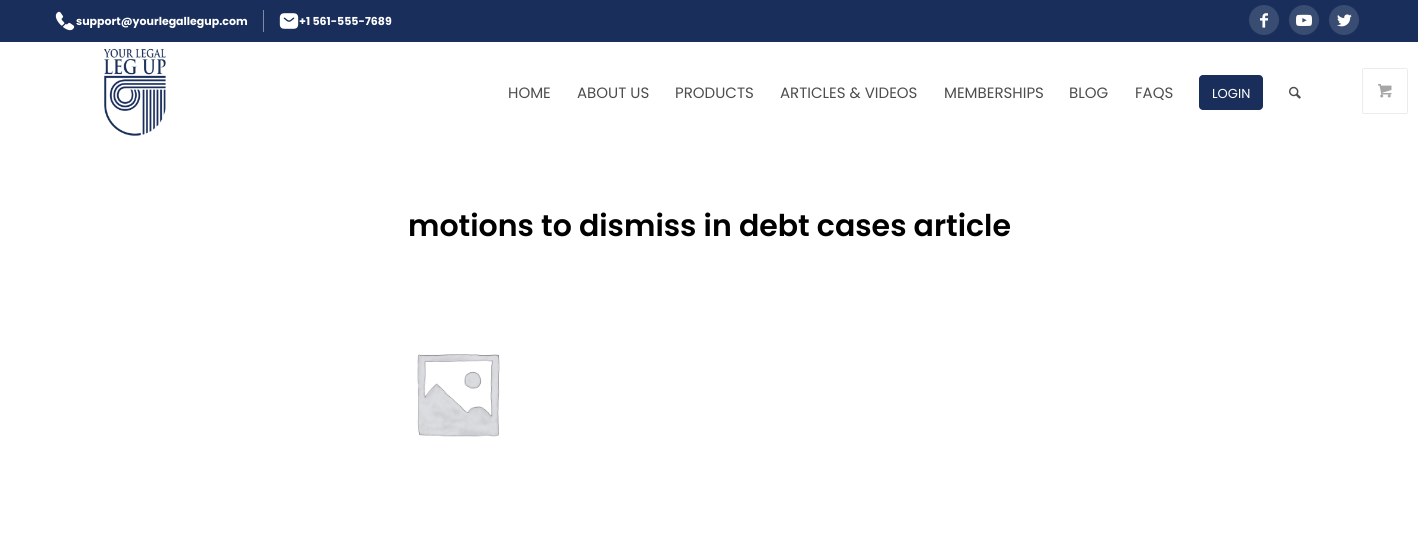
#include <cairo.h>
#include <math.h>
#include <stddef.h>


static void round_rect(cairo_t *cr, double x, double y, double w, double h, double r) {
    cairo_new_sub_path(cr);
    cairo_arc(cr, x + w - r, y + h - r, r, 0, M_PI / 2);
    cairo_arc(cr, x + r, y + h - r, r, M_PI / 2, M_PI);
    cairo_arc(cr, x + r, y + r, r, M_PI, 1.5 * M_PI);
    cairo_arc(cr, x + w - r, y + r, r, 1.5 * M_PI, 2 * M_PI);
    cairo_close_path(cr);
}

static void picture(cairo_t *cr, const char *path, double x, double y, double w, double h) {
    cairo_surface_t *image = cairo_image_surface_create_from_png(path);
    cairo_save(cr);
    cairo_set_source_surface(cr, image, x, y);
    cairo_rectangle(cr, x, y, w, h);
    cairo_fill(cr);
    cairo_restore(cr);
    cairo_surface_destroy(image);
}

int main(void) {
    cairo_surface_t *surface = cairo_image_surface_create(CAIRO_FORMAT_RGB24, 1418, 540);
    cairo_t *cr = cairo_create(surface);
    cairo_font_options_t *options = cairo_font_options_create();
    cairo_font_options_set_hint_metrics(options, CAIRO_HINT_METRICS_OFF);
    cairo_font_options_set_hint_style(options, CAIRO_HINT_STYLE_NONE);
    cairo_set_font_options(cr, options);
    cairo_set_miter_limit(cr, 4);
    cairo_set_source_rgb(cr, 1, 1, 1);
    cairo_paint(cr);
    cairo_set_source_rgb(cr, 0.098, 0.18, 0.357);
    cairo_rectangle(cr, 0, 0, 1418, 42);
    cairo_fill(cr);
    cairo_set_source_rgb(cr, 0.494, 0.541, 0.639);
    cairo_rectangle(cr, 263, 10, 1, 22);
    cairo_fill(cr);
    picture(cr, "img1.png", 55, 11, 20, 20);
    cairo_select_font_face(cr, "Poppins", CAIRO_FONT_SLANT_NORMAL, CAIRO_FONT_WEIGHT_BOLD);
    cairo_set_font_size(cr, 11);
    cairo_set_source_rgb(cr, 1, 1, 1);
    cairo_move_to(cr, 76, 25);
    cairo_show_text(cr, "support@yourlegallegup.com");
    picture(cr, "img2.png", 279, 13, 20, 16);
    cairo_move_to(cr, 299, 25);
    cairo_show_text(cr, "+1 561-555-7689");
    cairo_set_source_rgb(cr, 0.224, 0.298, 0.447);
    cairo_new_path(cr);
    cairo_arc(cr, 1264, 20, 15, 0, 2 * M_PI);
    cairo_fill(cr);
    picture(cr, "img3.png", 1260, 13, 8, 15);
    cairo_arc(cr, 1304, 20, 15, 0, 2 * M_PI);
    cairo_fill(cr);
    picture(cr, "img4.png", 1296, 14, 16, 12);
    cairo_arc(cr, 1344, 20, 15, 0, 2 * M_PI);
    cairo_fill(cr);
    picture(cr, "img5.png", 1337, 14, 15, 13);
    picture(cr, "img6.png", 104, 48, 62, 88);
    cairo_select_font_face(cr, "Poppins", CAIRO_FONT_SLANT_NORMAL, CAIRO_FONT_WEIGHT_NORMAL);
    cairo_set_font_size(cr, 15);
    cairo_set_source_rgb(cr, 0.302, 0.302, 0.302);
    cairo_move_to(cr, 508, 98);
    cairo_show_text(cr, "HOME");
    cairo_move_to(cr, 577, 98);
    cairo_show_text(cr, "ABOUT US");
    cairo_move_to(cr, 675, 98);
    cairo_show_text(cr, "PRODUCTS");
    cairo_move_to(cr, 780, 98);
    cairo_show_text(cr, "ARTICLES & VIDEOS");
    cairo_move_to(cr, 944, 98);
    cairo_show_text(cr, "MEMBERSHIPS");
    cairo_move_to(cr, 1069, 98);
    cairo_show_text(cr, "BLOG");
    cairo_move_to(cr, 1135, 98);
    cairo_show_text(cr, "FAQS");
    cairo_set_source_rgb(cr, 0.098, 0.18, 0.357);
    round_rect(cr, 1199, 75, 64, 35, 4);
    cairo_fill(cr);
    cairo_set_font_size(cr, 13);
    cairo_set_source_rgb(cr, 1, 1, 1);
    cairo_move_to(cr, 1212, 98);
    cairo_show_text(cr, "LOGIN");
    picture(cr, "img7.png", 1289, 86, 12, 13);
    round_rect(cr, 1362.5, 68.5, 45, 45, 1.5);
    cairo_set_source_rgb(cr, 0.922, 0.922, 0.922);
    cairo_set_line_width(cr, 1);
    cairo_stroke(cr);
    cairo_set_source_rgb(cr, 1, 1, 1);
    cairo_rectangle(cr, 1363, 69, 44, 44);
    cairo_fill(cr);
    picture(cr, "img8.png", 1378, 84, 14, 14);
    cairo_select_font_face(cr, "Poppins SemiBold", CAIRO_FONT_SLANT_NORMAL, CAIRO_FONT_WEIGHT_NORMAL);
    cairo_set_font_size(cr, 30);
    cairo_set_source_rgb(cr, 0, 0, 0);
    cairo_move_to(cr, 408, 236);
    cairo_show_text(cr, "motions to dismiss in debt cases article");
    picture(cr, "img9.png", 417, 354, 83, 83);
    cairo_surface_write_to_png(surface, "page.png");
    cairo_font_options_destroy(options);
    cairo_destroy(cr);
    cairo_surface_destroy(surface);
    return 0;
}
